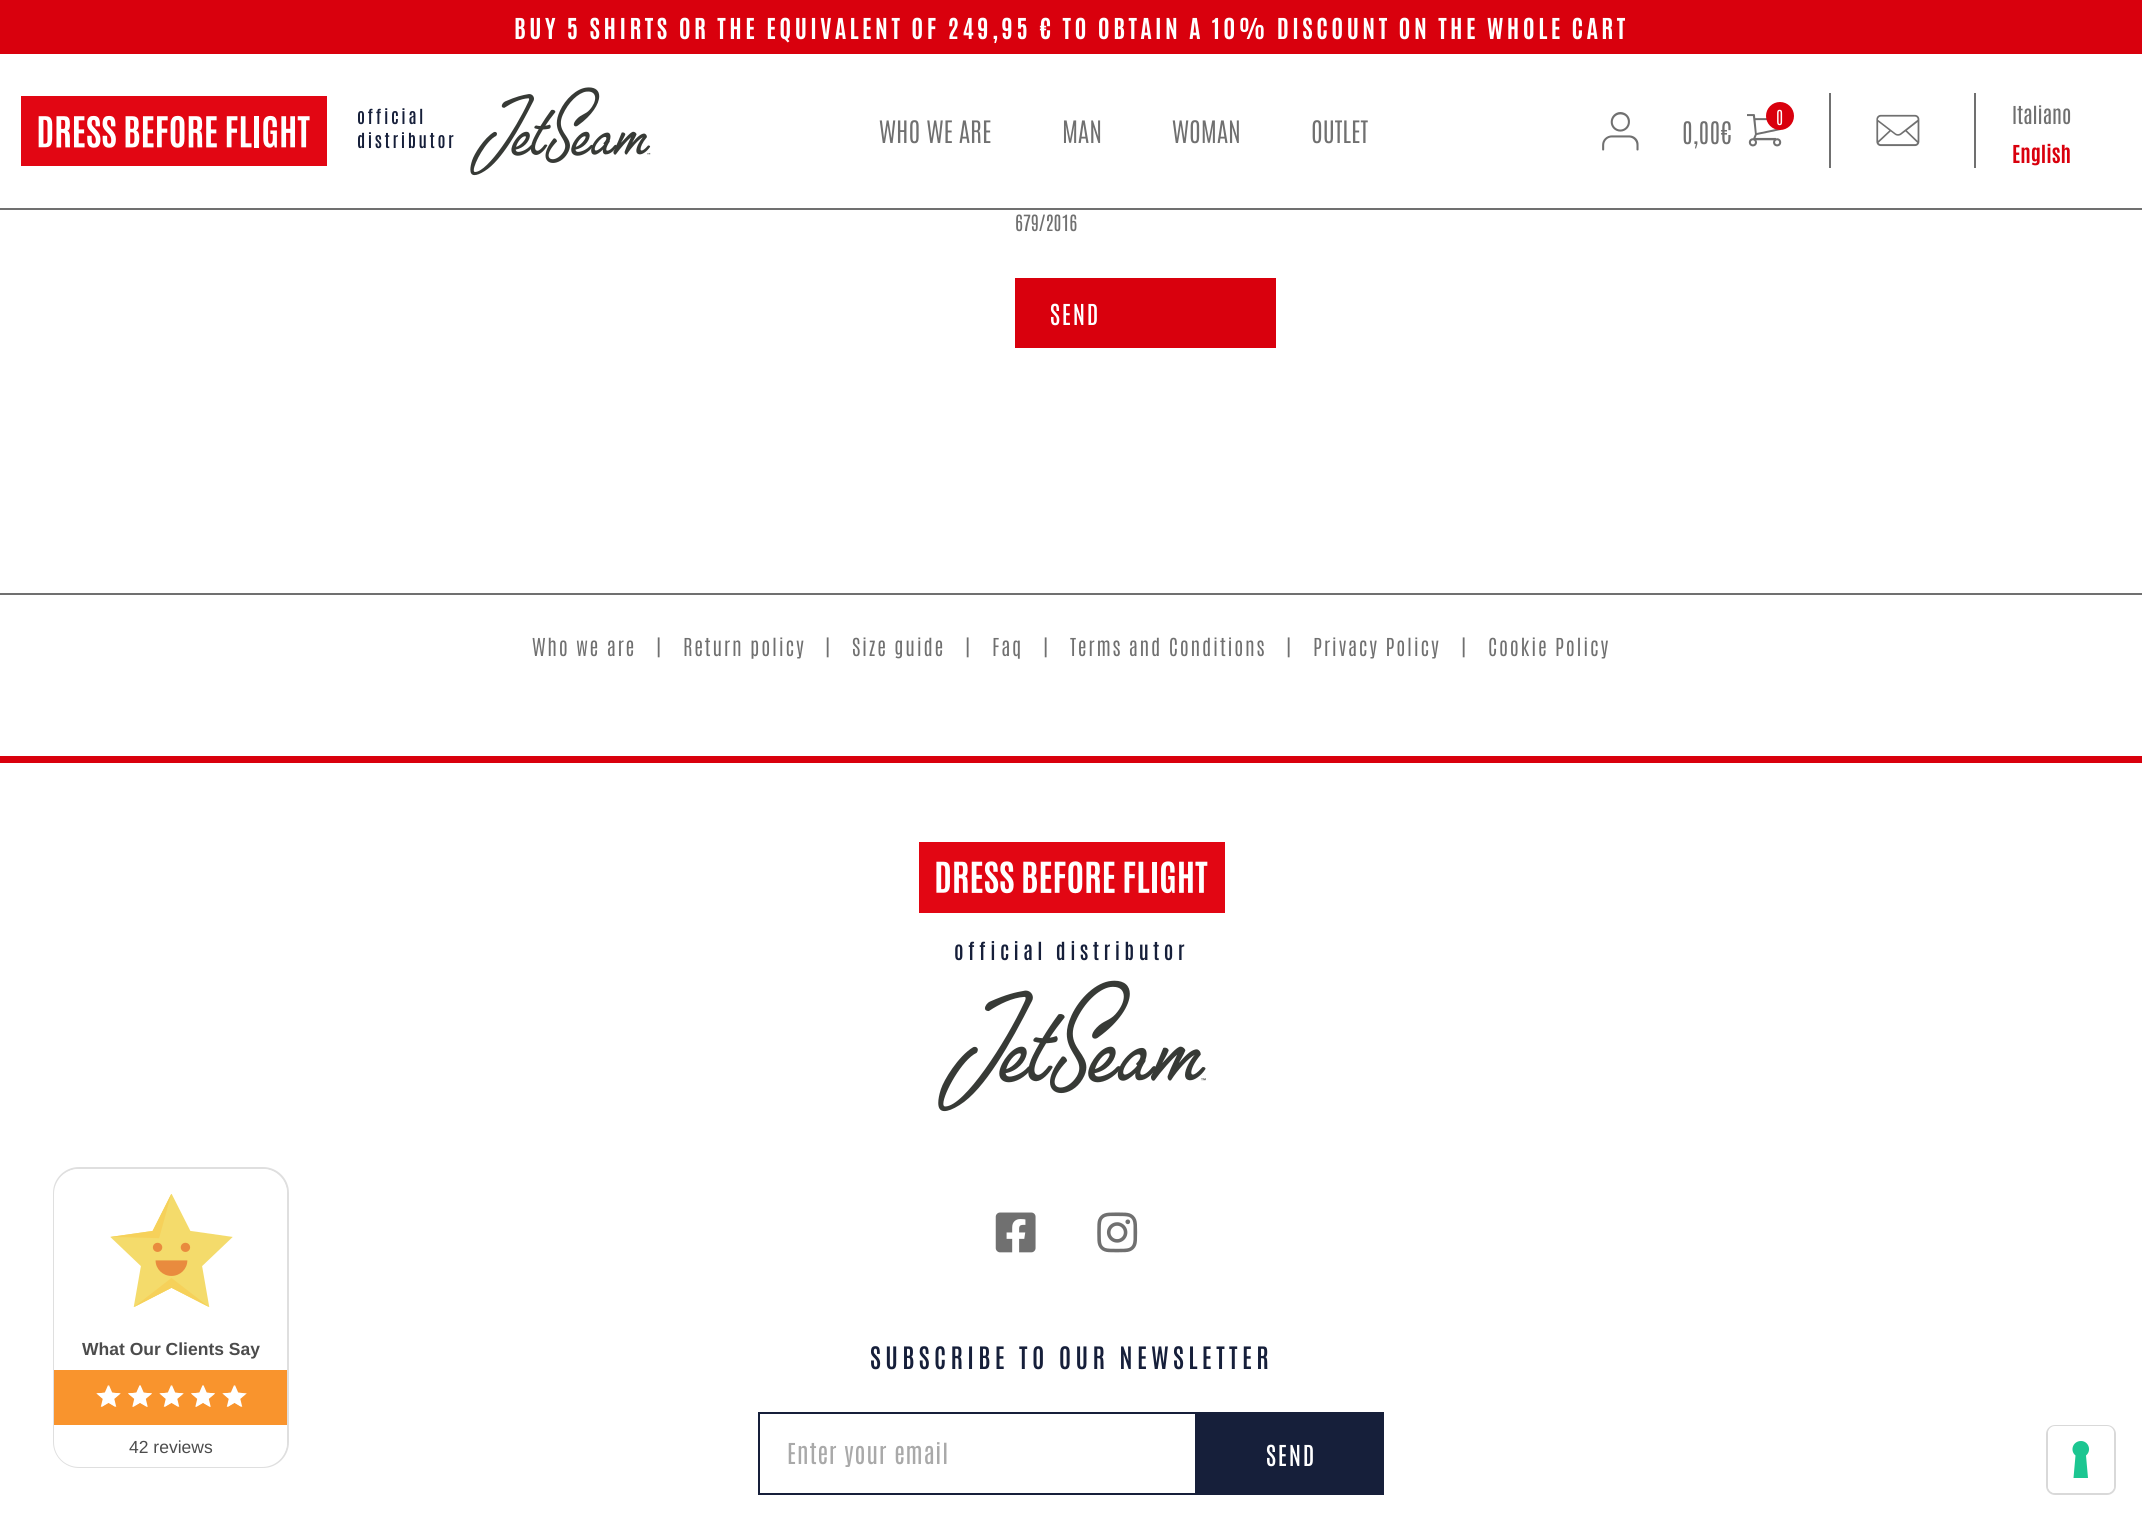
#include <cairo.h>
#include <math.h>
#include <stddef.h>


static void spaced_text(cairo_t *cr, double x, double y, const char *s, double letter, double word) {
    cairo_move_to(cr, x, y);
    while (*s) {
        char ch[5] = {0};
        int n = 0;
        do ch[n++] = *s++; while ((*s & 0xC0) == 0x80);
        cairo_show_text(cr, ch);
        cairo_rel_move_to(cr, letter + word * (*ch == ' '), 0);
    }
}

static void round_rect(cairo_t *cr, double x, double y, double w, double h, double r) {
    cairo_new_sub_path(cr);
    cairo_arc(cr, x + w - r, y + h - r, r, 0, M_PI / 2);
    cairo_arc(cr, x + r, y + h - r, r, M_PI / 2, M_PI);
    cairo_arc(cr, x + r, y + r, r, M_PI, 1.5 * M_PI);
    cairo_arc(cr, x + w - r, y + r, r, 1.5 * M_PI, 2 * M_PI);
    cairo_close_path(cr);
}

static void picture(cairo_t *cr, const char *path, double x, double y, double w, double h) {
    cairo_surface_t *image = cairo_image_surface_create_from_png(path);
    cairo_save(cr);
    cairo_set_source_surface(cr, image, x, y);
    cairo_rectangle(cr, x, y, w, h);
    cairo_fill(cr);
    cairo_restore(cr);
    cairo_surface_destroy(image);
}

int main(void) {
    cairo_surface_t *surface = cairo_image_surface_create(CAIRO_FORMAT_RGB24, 2142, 1520);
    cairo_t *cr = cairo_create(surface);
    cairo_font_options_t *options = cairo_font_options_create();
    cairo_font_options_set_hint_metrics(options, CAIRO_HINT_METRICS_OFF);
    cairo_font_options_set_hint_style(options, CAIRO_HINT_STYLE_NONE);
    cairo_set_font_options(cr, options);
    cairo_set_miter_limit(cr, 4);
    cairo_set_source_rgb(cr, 1, 1, 1);
    cairo_paint(cr);
    cairo_set_source_rgb(cr, 0.851, 0, 0.051);
    cairo_rectangle(cr, 0, 0, 2142, 54);
    cairo_fill(cr);
    cairo_select_font_face(cr, "Antonio", CAIRO_FONT_SLANT_NORMAL, CAIRO_FONT_WEIGHT_BOLD);
    cairo_set_font_size(cr, 24.5);
    cairo_set_source_rgb(cr, 1, 1, 1);
    spaced_text(cr, 514, 39, "BUY 5 SHIRTS OR THE EQUIVALENT OF 249,95 € TO OBTAIN A 10% DISCOUNT ON THE WHOLE CART", 3.5, 0);
    picture(cr, "img1.png", 21, 96, 306, 70);
    cairo_select_font_face(cr, "Antonio SemiBold", CAIRO_FONT_SLANT_NORMAL, CAIRO_FONT_WEIGHT_NORMAL);
    cairo_set_font_size(cr, 17.5);
    cairo_set_source_rgb(cr, 0.086, 0.122, 0.227);
    spaced_text(cr, 357, 124, "official", 2.6, 0);
    spaced_text(cr, 357, 148, "distributor", 2.6, 0);
    picture(cr, "img2.png", 470, 87, 181, 89);
    cairo_select_font_face(cr, "Antonio Light", CAIRO_FONT_SLANT_NORMAL, CAIRO_FONT_WEIGHT_NORMAL);
    cairo_set_font_size(cr, 26.25);
    cairo_set_source_rgb(cr, 0.439, 0.439, 0.439);
    cairo_move_to(cr, 879, 143);
    cairo_show_text(cr, "WHO WE ARE");
    cairo_move_to(cr, 1062, 143);
    cairo_show_text(cr, "MAN");
    cairo_move_to(cr, 1172, 143);
    cairo_show_text(cr, "WOMAN");
    cairo_move_to(cr, 1311, 143);
    cairo_show_text(cr, "OUTLET");
    picture(cr, "img3.png", 1602, 112, 37, 39);
    picture(cr, "img4.png", 1747, 114, 35, 33);
    cairo_set_source_rgb(cr, 0.851, 0, 0.051);
    cairo_arc(cr, 1780, 116, 14, 0, 2 * M_PI);
    cairo_fill(cr);
    cairo_set_font_size(cr, 17.5);
    cairo_set_source_rgb(cr, 1, 1, 1);
    cairo_move_to(cr, 1776, 125);
    cairo_show_text(cr, "0");
    cairo_set_font_size(cr, 26.25);
    cairo_set_source_rgb(cr, 0.439, 0.439, 0.439);
    cairo_move_to(cr, 1682, 144);
    cairo_show_text(cr, "0,00€");
    cairo_rectangle(cr, 1974, 93, 2, 75);
    cairo_fill(cr);
    cairo_rectangle(cr, 1829, 93, 2, 75);
    cairo_fill(cr);
    picture(cr, "img5.png", 1876, 114, 44, 33);
    cairo_select_font_face(cr, "Antonio", CAIRO_FONT_SLANT_NORMAL, CAIRO_FONT_WEIGHT_NORMAL);
    cairo_set_font_size(cr, 21);
    cairo_move_to(cr, 2012, 124);
    cairo_show_text(cr, "Italiano");
    cairo_select_font_face(cr, "Antonio", CAIRO_FONT_SLANT_NORMAL, CAIRO_FONT_WEIGHT_BOLD);
    cairo_set_source_rgb(cr, 0.851, 0, 0.051);
    cairo_move_to(cr, 2012, 163);
    cairo_show_text(cr, "English");
    cairo_set_source_rgb(cr, 0.439, 0.439, 0.439);
    cairo_rectangle(cr, 0, 208, 2142, 2);
    cairo_fill(cr);
    round_rect(cr, 54, 1168, 234, 299, 25);
    cairo_set_source_rgb(cr, 0.875, 0.875, 0.875);
    cairo_stroke(cr);
    cairo_set_source_rgb(cr, 1, 1, 1);
    cairo_new_path(cr);
    cairo_move_to(cr, 79, 1169);
    cairo_line_to(cr, 262, 1169);
    cairo_curve_to(cr, 276, 1169, 287, 1180, 287, 1194);
    cairo_line_to(cr, 287, 1370);
    cairo_line_to(cr, 54, 1370);
    cairo_line_to(cr, 54, 1194);
    cairo_curve_to(cr, 54, 1180, 65, 1169, 79, 1169);
    cairo_close_path(cr);
    cairo_fill(cr);
    cairo_set_source_rgb(cr, 0.973, 0.58, 0.176);
    cairo_rectangle(cr, 54, 1370, 233, 55);
    cairo_fill(cr);
    cairo_set_source_rgb(cr, 1, 1, 1);
    cairo_new_path(cr);
    cairo_move_to(cr, 54, 1425);
    cairo_line_to(cr, 287, 1425);
    cairo_line_to(cr, 287, 1442);
    cairo_curve_to(cr, 287, 1456, 276, 1467, 262, 1467);
    cairo_line_to(cr, 79, 1467);
    cairo_curve_to(cr, 65, 1467, 54, 1456, 54, 1442);
    cairo_close_path(cr);
    cairo_fill(cr);
    picture(cr, "img6.png", 110, 1194, 123, 113);
    cairo_select_font_face(cr, "Liberation Sans", CAIRO_FONT_SLANT_NORMAL, CAIRO_FONT_WEIGHT_BOLD);
    cairo_set_font_size(cr, 17.5);
    cairo_set_source_rgb(cr, 0.298, 0.298, 0.298);
    cairo_move_to(cr, 82, 1355);
    cairo_show_text(cr, "What Our Clients Say");
    picture(cr, "img8.png", 97, 1385, 24, 22);
    picture(cr, "img7.png", 96, 1385, 24, 22);
    picture(cr, "img9.png", 128, 1385, 24, 22);
    picture(cr, "img10.png", 128, 1385, 24, 22);
    picture(cr, "img8.png", 160, 1385, 24, 22);
    picture(cr, "img7.png", 159, 1385, 24, 22);
    picture(cr, "img9.png", 191, 1385, 24, 22);
    picture(cr, "img10.png", 191, 1385, 24, 22);
    picture(cr, "img8.png", 223, 1385, 24, 22);
    picture(cr, "img11.png", 222, 1385, 20, 22);
    cairo_select_font_face(cr, "Liberation Sans", CAIRO_FONT_SLANT_NORMAL, CAIRO_FONT_WEIGHT_NORMAL);
    cairo_move_to(cr, 129, 1453);
    cairo_show_text(cr, "42 reviews");
    cairo_select_font_face(cr, "Antonio", CAIRO_FONT_SLANT_NORMAL, CAIRO_FONT_WEIGHT_NORMAL);
    cairo_set_font_size(cr, 19);
    cairo_set_source_rgb(cr, 0.439, 0.439, 0.439);
    cairo_move_to(cr, 1015, 231);
    cairo_show_text(cr, "679/2016");
    cairo_set_source_rgb(cr, 0.851, 0, 0.051);
    cairo_rectangle(cr, 1015, 278, 261, 70);
    cairo_fill(cr);
    cairo_select_font_face(cr, "Antonio Medium", CAIRO_FONT_SLANT_NORMAL, CAIRO_FONT_WEIGHT_NORMAL);
    cairo_set_font_size(cr, 24.5);
    cairo_set_source_rgb(cr, 1, 1, 1);
    spaced_text(cr, 1050, 325, "SEND", 1.75, 0);
    cairo_set_source_rgb(cr, 0.439, 0.439, 0.439);
    cairo_rectangle(cr, 0, 593, 2142, 2);
    cairo_fill(cr);
    cairo_select_font_face(cr, "Antonio Light", CAIRO_FONT_SLANT_NORMAL, CAIRO_FONT_WEIGHT_NORMAL);
    cairo_set_font_size(cr, 21);
    spaced_text(cr, 532, 656, "Who we are", 1.75, 0);
    spaced_text(cr, 656, 656, "|", 1.75, 0);
    spaced_text(cr, 683, 656, "Return policy", 1.75, 0);
    spaced_text(cr, 825, 656, "|", 1.75, 0);
    spaced_text(cr, 852, 656, "Size guide", 1.75, 0);
    spaced_text(cr, 965, 656, "|", 1.75, 0);
    spaced_text(cr, 992, 656, "Faq", 1.75, 0);
    spaced_text(cr, 1043, 656, "|", 1.75, 0);
    spaced_text(cr, 1070, 656, "Terms and Conditions", 1.75, 0);
    spaced_text(cr, 1286, 656, "|", 1.75, 0);
    spaced_text(cr, 1313, 656, "Privacy Policy", 1.75, 0);
    spaced_text(cr, 1461, 656, "|", 1.75, 0);
    spaced_text(cr, 1488, 656, "Cookie Policy", 1.75, 0);
    cairo_set_source_rgb(cr, 0.851, 0, 0.051);
    cairo_rectangle(cr, 0, 756, 2142, 7);
    cairo_fill(cr);
    picture(cr, "img12.png", 919, 842, 306, 71);
    cairo_select_font_face(cr, "Antonio SemiBold", CAIRO_FONT_SLANT_NORMAL, CAIRO_FONT_WEIGHT_NORMAL);
    cairo_set_source_rgb(cr, 0.086, 0.122, 0.227);
    spaced_text(cr, 954, 960, "official distributor", 4.4, 0);
    picture(cr, "img13.png", 938, 980, 268, 132);
    picture(cr, "img14.png", 995, 1212, 41, 41);
    picture(cr, "img15.png", 1097, 1212, 41, 41);
    cairo_set_font_size(cr, 26.25);
    spaced_text(cr, 870, 1369, "SUBSCRIBE TO OUR NEWSLETTER", 4.4, 0);
    cairo_rectangle(cr, 759, 1413, 437, 81);
    cairo_stroke(cr);
    cairo_select_font_face(cr, "Antonio", CAIRO_FONT_SLANT_NORMAL, CAIRO_FONT_WEIGHT_NORMAL);
    cairo_set_font_size(cr, 24.5);
    cairo_set_source_rgb(cr, 0.663, 0.663, 0.663);
    spaced_text(cr, 787, 1464, "Enter your email", 0.9, 0);
    cairo_set_source_rgb(cr, 0.086, 0.122, 0.227);
    cairo_rectangle(cr, 1197, 1412, 187, 83);
    cairo_fill(cr);
    cairo_select_font_face(cr, "Antonio Medium", CAIRO_FONT_SLANT_NORMAL, CAIRO_FONT_WEIGHT_NORMAL);
    cairo_set_source_rgb(cr, 1, 1, 1);
    spaced_text(cr, 1266, 1466, "SEND", 1.75, 0);
    round_rect(cr, 2047, 1426, 68, 68, 8);
    cairo_set_source_rgb(cr, 0.851, 0.851, 0.851);
    cairo_stroke(cr);
    cairo_set_source_rgb(cr, 1, 1, 1);
    round_rect(cr, 2048, 1426, 66, 67, 7);
    cairo_fill(cr);
    cairo_set_source_rgb(cr, 0.11, 0.776, 0.569);
    cairo_set_fill_rule(cr, CAIRO_FILL_RULE_EVEN_ODD);
    cairo_new_path(cr);
    cairo_move_to(cr, 2081, 1441);
    cairo_curve_to(cr, 2088.5, 1441, 2092, 1450.5, 2086, 1455.5);
    cairo_line_to(cr, 2088, 1478);
    cairo_line_to(cr, 2073.5, 1478);
    cairo_line_to(cr, 2075.5, 1455.5);
    cairo_curve_to(cr, 2069.5, 1450.5, 2073, 1441, 2081, 1441);
    cairo_close_path(cr);
    cairo_fill(cr);
    cairo_surface_write_to_png(surface, "page.png");
    cairo_font_options_destroy(options);
    cairo_destroy(cr);
    cairo_surface_destroy(surface);
    return 0;
}
